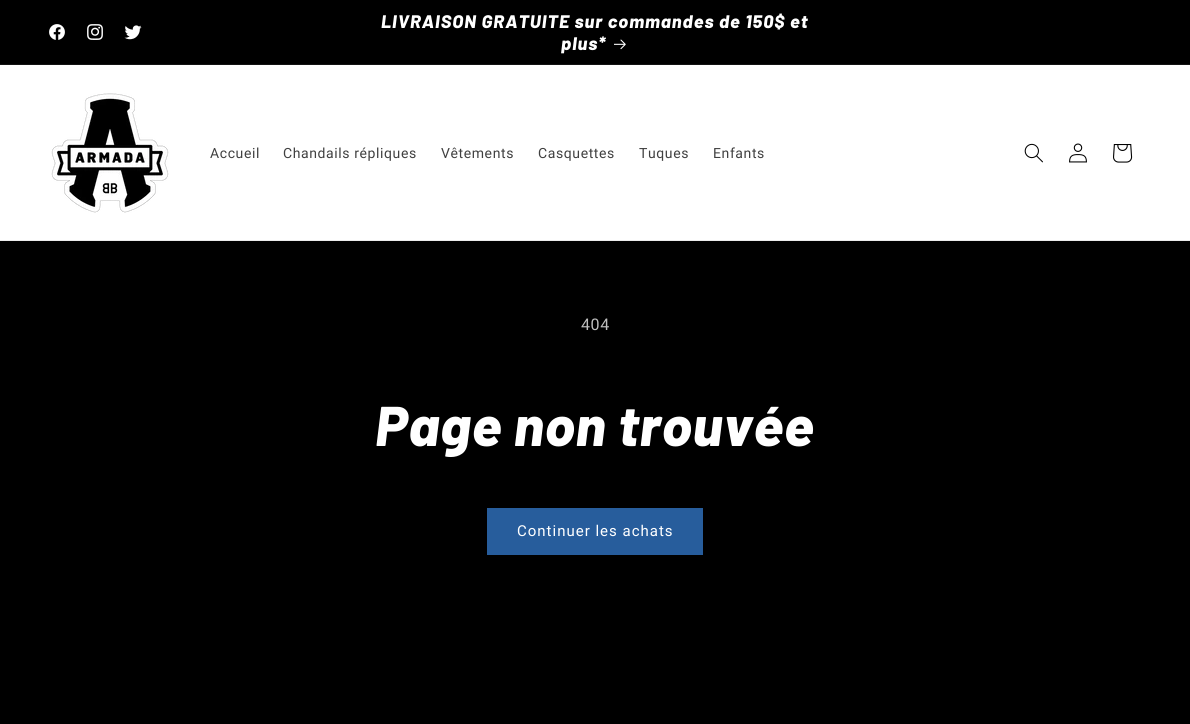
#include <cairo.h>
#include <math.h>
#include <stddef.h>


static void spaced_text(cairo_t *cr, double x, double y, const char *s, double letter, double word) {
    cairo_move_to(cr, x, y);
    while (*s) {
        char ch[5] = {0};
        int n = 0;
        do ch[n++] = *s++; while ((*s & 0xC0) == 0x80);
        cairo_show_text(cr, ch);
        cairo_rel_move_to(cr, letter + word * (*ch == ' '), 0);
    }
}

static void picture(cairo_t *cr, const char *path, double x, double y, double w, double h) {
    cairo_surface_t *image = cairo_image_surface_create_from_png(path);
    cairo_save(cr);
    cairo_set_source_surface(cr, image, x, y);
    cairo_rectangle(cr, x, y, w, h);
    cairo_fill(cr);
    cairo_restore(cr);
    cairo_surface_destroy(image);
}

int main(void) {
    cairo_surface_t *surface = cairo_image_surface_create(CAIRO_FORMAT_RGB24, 1190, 724);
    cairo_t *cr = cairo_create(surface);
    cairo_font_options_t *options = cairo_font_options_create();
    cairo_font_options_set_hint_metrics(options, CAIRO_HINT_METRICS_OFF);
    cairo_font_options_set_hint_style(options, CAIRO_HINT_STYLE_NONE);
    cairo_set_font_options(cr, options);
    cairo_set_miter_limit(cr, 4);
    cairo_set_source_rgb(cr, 0, 0, 0);
    cairo_paint(cr);
    cairo_set_source_rgb(cr, 0.078, 0.078, 0.078);
    cairo_rectangle(cr, 0, 64, 1190, 1);
    cairo_fill(cr);
    picture(cr, "img1.png", 49, 24, 16, 16);
    picture(cr, "img2.png", 87, 24, 16, 16);
    picture(cr, "img3.png", 124, 25, 18, 15);
    cairo_select_font_face(cr, "Barlow ExtraBold", CAIRO_FONT_SLANT_ITALIC, CAIRO_FONT_WEIGHT_NORMAL);
    cairo_set_font_size(cr, 18.2);
    cairo_set_source_rgb(cr, 1, 1, 1);
    spaced_text(cr, 381, 28, "LIVRAISON GRATUITE sur commandes de 150$ et", 1, 0);
    spaced_text(cr, 561, 50, "plus*", 1, 0);
    picture(cr, "img4.png", 614, 39, 12, 11);
    cairo_rectangle(cr, 0, 65, 1190, 175);
    cairo_fill(cr);
    cairo_set_source_rgb(cr, 0.922, 0.922, 0.922);
    cairo_rectangle(cr, 0, 240, 1190, 1);
    cairo_fill(cr);
    picture(cr, "img5.png", 51, 93, 118, 120);
    cairo_select_font_face(cr, "Roboto", CAIRO_FONT_SLANT_NORMAL, CAIRO_FONT_WEIGHT_NORMAL);
    cairo_set_font_size(cr, 14);
    cairo_set_source_rgb(cr, 0.251, 0.251, 0.251);
    spaced_text(cr, 210, 158, "Accueil", 0.6, 0);
    spaced_text(cr, 283, 158, "Chandails répliques", 0.6, 0);
    spaced_text(cr, 441, 158, "Vêtements", 0.6, 0);
    spaced_text(cr, 538, 158, "Casquettes", 0.6, 0);
    spaced_text(cr, 639, 158, "Tuques", 0.6, 0);
    spaced_text(cr, 713, 158, "Enfants", 0.6, 0);
    picture(cr, "img6.png", 1024, 143, 19, 20);
    picture(cr, "img7.png", 1069, 143, 18, 20);
    picture(cr, "img8.png", 1113, 144, 20, 19);
    cairo_set_font_size(cr, 16);
    cairo_set_source_rgb(cr, 0.749, 0.749, 0.749);
    spaced_text(cr, 581, 330, "404", 0.6, 0);
    cairo_select_font_face(cr, "Barlow ExtraBold", CAIRO_FONT_SLANT_ITALIC, CAIRO_FONT_WEIGHT_NORMAL);
    cairo_set_font_size(cr, 56);
    cairo_set_source_rgb(cr, 1, 1, 1);
    spaced_text(cr, 375, 446, "Page non trouvée", 0.8, 0);
    cairo_set_source_rgb(cr, 0.153, 0.365, 0.612);
    cairo_rectangle(cr, 487, 508, 216, 47);
    cairo_fill(cr);
    cairo_select_font_face(cr, "Roboto", CAIRO_FONT_SLANT_NORMAL, CAIRO_FONT_WEIGHT_NORMAL);
    cairo_set_font_size(cr, 15);
    cairo_set_source_rgb(cr, 1, 1, 1);
    spaced_text(cr, 517, 536, "Continuer les achats", 1, 0);
    cairo_surface_write_to_png(surface, "page.png");
    cairo_font_options_destroy(options);
    cairo_destroy(cr);
    cairo_surface_destroy(surface);
    return 0;
}
